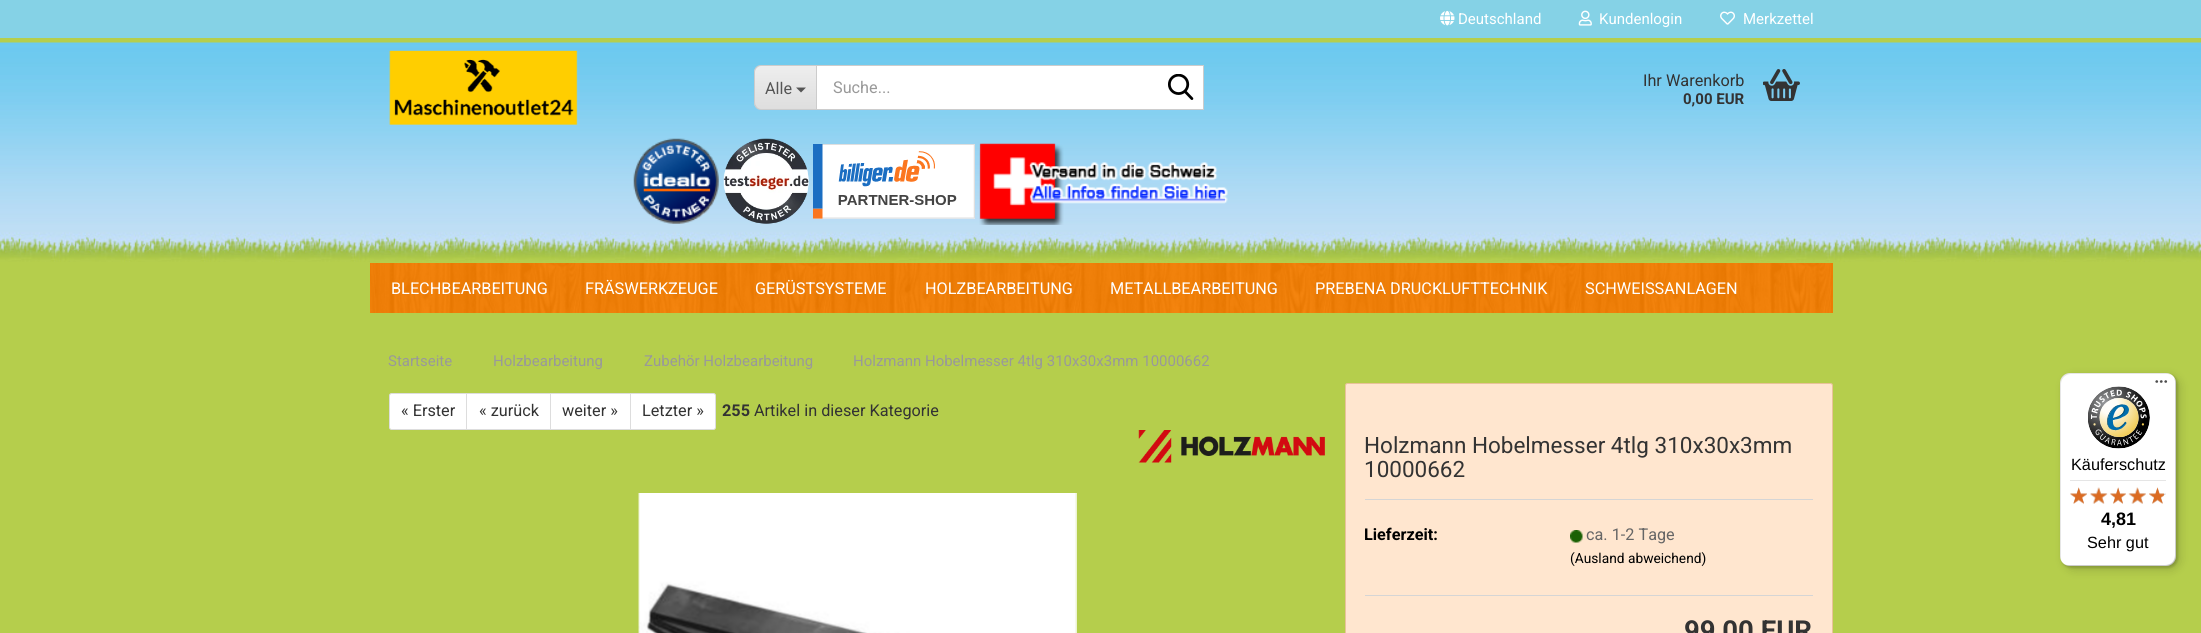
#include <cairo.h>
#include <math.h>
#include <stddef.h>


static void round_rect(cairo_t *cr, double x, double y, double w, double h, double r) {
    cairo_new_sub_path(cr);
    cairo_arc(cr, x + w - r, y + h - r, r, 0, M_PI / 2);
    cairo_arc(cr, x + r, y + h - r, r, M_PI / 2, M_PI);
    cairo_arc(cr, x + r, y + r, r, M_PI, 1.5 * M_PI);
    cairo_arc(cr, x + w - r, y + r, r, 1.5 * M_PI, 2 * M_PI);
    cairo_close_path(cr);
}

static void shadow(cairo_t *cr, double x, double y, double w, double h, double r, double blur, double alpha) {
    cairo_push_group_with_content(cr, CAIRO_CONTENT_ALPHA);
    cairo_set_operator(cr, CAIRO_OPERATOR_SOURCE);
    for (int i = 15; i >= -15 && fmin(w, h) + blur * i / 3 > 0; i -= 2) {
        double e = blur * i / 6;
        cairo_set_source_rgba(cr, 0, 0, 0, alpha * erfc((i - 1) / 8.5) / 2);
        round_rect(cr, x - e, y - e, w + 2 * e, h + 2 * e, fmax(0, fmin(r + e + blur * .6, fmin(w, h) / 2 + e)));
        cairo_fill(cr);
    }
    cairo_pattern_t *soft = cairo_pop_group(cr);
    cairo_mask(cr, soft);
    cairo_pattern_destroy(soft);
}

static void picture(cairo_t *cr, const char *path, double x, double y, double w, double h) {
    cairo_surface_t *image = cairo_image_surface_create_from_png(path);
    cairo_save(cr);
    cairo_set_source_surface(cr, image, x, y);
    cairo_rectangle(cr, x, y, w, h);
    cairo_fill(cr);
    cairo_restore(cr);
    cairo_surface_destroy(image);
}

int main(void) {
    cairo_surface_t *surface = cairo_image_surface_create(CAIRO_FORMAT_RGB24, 2201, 633);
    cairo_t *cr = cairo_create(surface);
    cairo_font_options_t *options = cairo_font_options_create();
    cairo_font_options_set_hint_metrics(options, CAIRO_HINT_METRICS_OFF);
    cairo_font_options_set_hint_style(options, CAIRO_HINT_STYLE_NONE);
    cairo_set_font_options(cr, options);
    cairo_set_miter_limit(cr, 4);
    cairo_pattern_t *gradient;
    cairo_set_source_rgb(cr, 0.71, 0.808, 0.298);
    cairo_paint(cr);
    picture(cr, "img1.png", 0, 42, 2201, 220);
    cairo_set_source_rgb(cr, 0.522, 0.824, 0.902);
    cairo_rectangle(cr, 0, 0, 2201, 38);
    cairo_fill(cr);
    picture(cr, "img2.png", 1440, 10, 15, 16);
    cairo_select_font_face(cr, "Roboto", CAIRO_FONT_SLANT_NORMAL, CAIRO_FONT_WEIGHT_NORMAL);
    cairo_set_font_size(cr, 15);
    cairo_set_source_rgb(cr, 1, 1, 1);
    cairo_move_to(cr, 1458, 24);
    cairo_show_text(cr, "Deutschland");
    picture(cr, "img3.png", 1578, 10, 14, 16);
    cairo_move_to(cr, 1599, 24);
    cairo_show_text(cr, "Kundenlogin");
    picture(cr, "img4.png", 1720, 11, 15, 14);
    cairo_move_to(cr, 1743, 24);
    cairo_show_text(cr, "Merkzettel");
    picture(cr, "img5.png", 389, 50, 189, 75);
    cairo_save(cr);
    cairo_new_path(cr);
    cairo_move_to(cr, 762, 65);
    cairo_line_to(cr, 816, 65);
    cairo_line_to(cr, 816, 110);
    cairo_line_to(cr, 762, 110);
    cairo_curve_to(cr, 757.5, 110, 754, 106.5, 754, 102);
    cairo_line_to(cr, 754, 73);
    cairo_curve_to(cr, 754, 68.5, 757.5, 65, 762, 65);
    cairo_close_path(cr);
    cairo_clip(cr);
    gradient = cairo_pattern_create_linear(786, 66, 786, 109);
    cairo_pattern_add_color_stop_rgba(gradient, 0, 0.933, 0.933, 0.933, 1);
    cairo_pattern_add_color_stop_rgba(gradient, 1, 0.871, 0.871, 0.871, 1);
    cairo_set_source(cr, gradient);
    cairo_pattern_destroy(gradient);
    cairo_rectangle(cr, 754, 66, 62, 43);
    cairo_fill(cr);
    cairo_restore(cr);
    cairo_set_source_rgb(cr, 0.8, 0.8, 0.8);
    cairo_set_fill_rule(cr, CAIRO_FILL_RULE_EVEN_ODD);
    cairo_new_path(cr);
    cairo_move_to(cr, 761, 65);
    cairo_line_to(cr, 816, 65);
    cairo_line_to(cr, 816, 110);
    cairo_line_to(cr, 761, 110);
    cairo_curve_to(cr, 757, 110, 754, 107, 754, 102);
    cairo_line_to(cr, 754, 72);
    cairo_curve_to(cr, 754, 68, 757, 65, 761, 65);
    cairo_close_path(cr);
    cairo_move_to(cr, 761, 66);
    cairo_line_to(cr, 816, 66);
    cairo_line_to(cr, 816, 109);
    cairo_line_to(cr, 761, 109);
    cairo_curve_to(cr, 758, 109, 755, 106, 755, 102);
    cairo_line_to(cr, 755, 72);
    cairo_curve_to(cr, 755, 69, 758, 66, 761, 66);
    cairo_close_path(cr);
    cairo_fill(cr);
    cairo_set_font_size(cr, 16.25);
    cairo_set_source_rgb(cr, 0.333, 0.333, 0.333);
    cairo_move_to(cr, 765, 94);
    cairo_show_text(cr, "Alle");
    cairo_set_fill_rule(cr, CAIRO_FILL_RULE_WINDING);
    cairo_new_path(cr);
    cairo_move_to(cr, 796, 87.5);
    cairo_line_to(cr, 806, 87.5);
    cairo_line_to(cr, 801, 92.5);
    cairo_close_path(cr);
    cairo_fill(cr);
    cairo_set_source_rgb(cr, 1, 1, 1);
    cairo_rectangle(cr, 816.5, 65.5, 387, 44);
    cairo_fill_preserve(cr);
    cairo_set_source_rgb(cr, 0.8, 0.8, 0.8);
    cairo_set_line_width(cr, 1);
    cairo_stroke(cr);
    cairo_set_source_rgb(cr, 0.6, 0.6, 0.6);
    cairo_move_to(cr, 833, 93);
    cairo_show_text(cr, "Suche...");
    picture(cr, "img6.png", 1168, 74, 26, 26);
    cairo_set_source_rgb(cr, 0.2, 0.2, 0.2);
    cairo_move_to(cr, 1643, 86);
    cairo_show_text(cr, "Ihr Warenkorb");
    cairo_select_font_face(cr, "Roboto", CAIRO_FONT_SLANT_NORMAL, CAIRO_FONT_WEIGHT_BOLD);
    cairo_set_font_size(cr, 15);
    cairo_move_to(cr, 1683, 104);
    cairo_show_text(cr, "0,00 EUR");
    picture(cr, "img7.png", 1763, 69, 37, 32);
    picture(cr, "img8.png", 633, 138, 86, 86);
    picture(cr, "img9.png", 723, 138, 86, 86);
    picture(cr, "img10.png", 813, 144, 162, 75);
    picture(cr, "img11.png", 979, 143, 249, 82);
    cairo_set_source_rgb(cr, 0.976, 0.502, 0.004);
    cairo_rectangle(cr, 370, 263, 1463, 50);
    cairo_fill(cr);
    picture(cr, "img12.png", 370, 263, 1463, 50);
    cairo_select_font_face(cr, "Roboto", CAIRO_FONT_SLANT_NORMAL, CAIRO_FONT_WEIGHT_NORMAL);
    cairo_set_font_size(cr, 16.25);
    cairo_set_source_rgb(cr, 1, 1, 1);
    cairo_move_to(cr, 391, 294);
    cairo_show_text(cr, "BLECHBEARBEITUNG");
    cairo_move_to(cr, 585, 294);
    cairo_show_text(cr, "FRÄSWERKZEUGE");
    cairo_move_to(cr, 755, 294);
    cairo_show_text(cr, "GERÜSTSYSTEME");
    cairo_move_to(cr, 925, 294);
    cairo_show_text(cr, "HOLZBEARBEITUNG");
    cairo_move_to(cr, 1110, 294);
    cairo_show_text(cr, "METALLBEARBEITUNG");
    cairo_move_to(cr, 1315, 294);
    cairo_show_text(cr, "PREBENA DRUCKLUFTTECHNIK");
    cairo_move_to(cr, 1585, 294);
    cairo_show_text(cr, "SCHWEISSANLAGEN");
    cairo_set_font_size(cr, 15);
    cairo_set_source_rgb(cr, 0.6, 0.6, 0.6);
    cairo_move_to(cr, 388, 366);
    cairo_show_text(cr, "Startseite");
    cairo_move_to(cr, 493, 366);
    cairo_show_text(cr, "Holzbearbeitung");
    cairo_move_to(cr, 644, 366);
    cairo_show_text(cr, "Zubehör Holzbearbeitung");
    cairo_move_to(cr, 853, 366);
    cairo_show_text(cr, "Holzmann Hobelmesser 4tlg 310x30x3mm 10000662");
    cairo_set_source_rgb(cr, 1, 1, 1);
    cairo_new_path(cr);
    cairo_move_to(cr, 391.5, 393.5);
    cairo_line_to(cr, 467.5, 393.5);
    cairo_line_to(cr, 467.5, 429.5);
    cairo_line_to(cr, 391.5, 429.5);
    cairo_curve_to(cr, 390.5, 429.5, 389.5, 428.5, 389.5, 427.5);
    cairo_line_to(cr, 389.5, 395.5);
    cairo_curve_to(cr, 389.5, 394.5, 390.5, 393.5, 391.5, 393.5);
    cairo_close_path(cr);
    cairo_fill_preserve(cr);
    cairo_set_source_rgb(cr, 0.867, 0.867, 0.867);
    cairo_stroke(cr);
    cairo_set_font_size(cr, 16.25);
    cairo_set_source_rgb(cr, 0.2, 0.2, 0.2);
    cairo_move_to(cr, 401, 416);
    cairo_show_text(cr, "« Erster");
    cairo_set_source_rgb(cr, 1, 1, 1);
    cairo_rectangle(cr, 466.5, 393.5, 84, 36);
    cairo_fill_preserve(cr);
    cairo_set_source_rgb(cr, 0.867, 0.867, 0.867);
    cairo_stroke(cr);
    cairo_set_source_rgb(cr, 0.2, 0.2, 0.2);
    cairo_move_to(cr, 479, 416);
    cairo_show_text(cr, "« zurück");
    cairo_set_source_rgb(cr, 1, 1, 1);
    cairo_rectangle(cr, 550.5, 393.5, 80, 36);
    cairo_fill_preserve(cr);
    cairo_set_source_rgb(cr, 0.867, 0.867, 0.867);
    cairo_stroke(cr);
    cairo_set_source_rgb(cr, 0.2, 0.2, 0.2);
    cairo_move_to(cr, 562, 416);
    cairo_show_text(cr, "weiter »");
    cairo_set_source_rgb(cr, 1, 1, 1);
    cairo_new_path(cr);
    cairo_move_to(cr, 630.5, 393.5);
    cairo_line_to(cr, 713.5, 393.5);
    cairo_curve_to(cr, 714.5, 393.5, 715.5, 394.5, 715.5, 395.5);
    cairo_line_to(cr, 715.5, 427.5);
    cairo_curve_to(cr, 715.5, 428.5, 714.5, 429.5, 713.5, 429.5);
    cairo_line_to(cr, 630.5, 429.5);
    cairo_close_path(cr);
    cairo_fill_preserve(cr);
    cairo_set_source_rgb(cr, 0.867, 0.867, 0.867);
    cairo_stroke(cr);
    cairo_set_source_rgb(cr, 0.2, 0.2, 0.2);
    cairo_move_to(cr, 642, 416);
    cairo_show_text(cr, "Letzter »");
    cairo_select_font_face(cr, "Roboto", CAIRO_FONT_SLANT_NORMAL, CAIRO_FONT_WEIGHT_BOLD);
    cairo_move_to(cr, 722, 416);
    cairo_show_text(cr, "255");
    cairo_select_font_face(cr, "Roboto", CAIRO_FONT_SLANT_NORMAL, CAIRO_FONT_WEIGHT_NORMAL);
    cairo_move_to(cr, 754, 416);
    cairo_show_text(cr, "Artikel in dieser Kategorie");
    picture(cr, "img13.png", 1138, 430, 187, 33);
    picture(cr, "img14.png", 638, 493, 439, 140);
    cairo_set_source_rgb(cr, 1, 0.902, 0.812);
    round_rect(cr, 1345.5, 383.5, 487, 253, 2);
    cairo_fill_preserve(cr);
    cairo_set_source_rgb(cr, 0.914, 0.761, 0.6);
    cairo_stroke(cr);
    cairo_set_source_rgb(cr, 0.835, 0.835, 0.835);
    cairo_rectangle(cr, 1365, 499, 448, 1);
    cairo_fill(cr);
    cairo_set_font_size(cr, 22.5);
    cairo_set_source_rgb(cr, 0.2, 0.2, 0.2);
    cairo_move_to(cr, 1364, 453);
    cairo_show_text(cr, "Holzmann Hobelmesser 4tlg 310x30x3mm");
    cairo_move_to(cr, 1364, 477);
    cairo_show_text(cr, "10000662");
    cairo_set_source_rgb(cr, 0.835, 0.835, 0.835);
    cairo_rectangle(cr, 1365, 595, 448, 1);
    cairo_fill(cr);
    cairo_select_font_face(cr, "Roboto", CAIRO_FONT_SLANT_NORMAL, CAIRO_FONT_WEIGHT_BOLD);
    cairo_set_font_size(cr, 16.25);
    cairo_set_source_rgb(cr, 0, 0, 0);
    cairo_move_to(cr, 1364, 540);
    cairo_show_text(cr, "Lieferzeit:");
    picture(cr, "img15.png", 1570, 530, 13, 13);
    cairo_select_font_face(cr, "Roboto", CAIRO_FONT_SLANT_NORMAL, CAIRO_FONT_WEIGHT_NORMAL);
    cairo_set_source_rgb(cr, 0.4, 0.4, 0.4);
    cairo_move_to(cr, 1586, 540);
    cairo_show_text(cr, "ca. 1-2 Tage");
    cairo_set_font_size(cr, 13.75);
    cairo_set_source_rgb(cr, 0, 0, 0);
    cairo_move_to(cr, 1570, 563);
    cairo_show_text(cr, "(Ausland abweichend)");
    cairo_select_font_face(cr, "Roboto", CAIRO_FONT_SLANT_NORMAL, CAIRO_FONT_WEIGHT_BOLD);
    cairo_set_font_size(cr, 27.5);
    cairo_set_source_rgb(cr, 0.2, 0.2, 0.2);
    cairo_move_to(cr, 1684, 640);
    cairo_show_text(cr, "99,00 EUR");
    cairo_set_source_rgb(cr, 0, 0, 0);
    shadow(cr, 2064, 376, 116, 194, 10, 5, 0.15);
    shadow(cr, 2061, 374, 117, 194, 10, 1, 0.15);
    cairo_set_source_rgb(cr, 1, 1, 1);
    round_rect(cr, 2060, 373, 116, 193, 10);
    cairo_fill(cr);
    cairo_set_source_rgba(cr, 0, 0, 0, 0.1);
    cairo_new_path(cr);
    cairo_move_to(cr, 2071, 374);
    cairo_line_to(cr, 2168, 374);
    cairo_line_to(cr, 2172, 375);
    cairo_curve_to(cr, 2170, 374, 2168, 373, 2166, 373);
    cairo_line_to(cr, 2070, 373);
    cairo_curve_to(cr, 2064, 373, 2060, 377, 2060, 383);
    cairo_line_to(cr, 2060, 556);
    cairo_curve_to(cr, 2060, 558, 2061, 560, 2062, 562);
    cairo_curve_to(cr, 2061, 561, 2061, 559, 2061, 558);
    cairo_line_to(cr, 2061, 384);
    cairo_curve_to(cr, 2061, 378, 2066, 374, 2071, 374);
    cairo_close_path(cr);
    cairo_fill(cr);
    cairo_set_source_rgba(cr, 0, 0, 0, 0.2);
    cairo_new_path(cr);
    cairo_move_to(cr, 2064, 564);
    cairo_curve_to(cr, 2065, 565, 2068, 566, 2070, 566);
    cairo_line_to(cr, 2166, 566);
    cairo_curve_to(cr, 2172, 566, 2176, 562, 2176, 556);
    cairo_line_to(cr, 2176, 383);
    cairo_curve_to(cr, 2176, 381, 2175, 379, 2174, 377);
    cairo_line_to(cr, 2175, 381);
    cairo_line_to(cr, 2175, 555);
    cairo_curve_to(cr, 2175, 561, 2171, 565, 2165, 565);
    cairo_line_to(cr, 2069, 565);
    cairo_curve_to(cr, 2067, 565, 2065, 565, 2064, 564);
    cairo_close_path(cr);
    cairo_fill(cr);
    picture(cr, "img16.png", 2155, 380, 13, 3);
    cairo_set_source_rgba(cr, 0.196, 0.196, 0.196, 0.2);
    cairo_new_path(cr);
    cairo_move_to(cr, 2166, 566);
    cairo_curve_to(cr, 2171.5, 566, 2176, 561.5, 2176, 556);
    cairo_curve_to(cr, 2176, 561, 2171, 566, 2166, 566);
    cairo_close_path(cr);
    cairo_fill(cr);
    cairo_set_source_rgba(cr, 1, 1, 1, 0.3);
    cairo_new_path(cr);
    cairo_move_to(cr, 2166, 566);
    cairo_curve_to(cr, 2171.5, 566, 2176, 561.5, 2176, 556);
    cairo_curve_to(cr, 2176, 561, 2171, 566, 2166, 566);
    cairo_close_path(cr);
    cairo_fill(cr);
    picture(cr, "img17.png", 2088, 386, 62, 63);
    cairo_select_font_face(cr, "Liberation Sans", CAIRO_FONT_SLANT_NORMAL, CAIRO_FONT_WEIGHT_NORMAL);
    cairo_set_font_size(cr, 16.25);
    cairo_set_source_rgb(cr, 0, 0, 0);
    cairo_move_to(cr, 2071, 470);
    cairo_show_text(cr, "Käuferschutz");
    cairo_set_source_rgb(cr, 0.898, 0.898, 0.898);
    cairo_rectangle(cr, 2070, 480, 96, 1);
    cairo_fill(cr);
    picture(cr, "img18.png", 2070, 488, 17, 16);
    picture(cr, "img19.png", 2090, 487, 17, 17);
    picture(cr, "img20.png", 2110, 488, 16, 16);
    picture(cr, "img21.png", 2129, 487, 17, 17);
    picture(cr, "img22.png", 2149, 488, 17, 16);
    picture(cr, "img23.png", 2070, 487, 17, 17);
    picture(cr, "img24.png", 2090, 487, 18, 17);
    picture(cr, "img25.png", 2110, 487, 16, 17);
    picture(cr, "img26.png", 2128, 487, 18, 17);
    picture(cr, "img27.png", 2149, 487, 15, 17);
    cairo_select_font_face(cr, "Liberation Sans", CAIRO_FONT_SLANT_NORMAL, CAIRO_FONT_WEIGHT_BOLD);
    cairo_set_font_size(cr, 18);
    cairo_set_source_rgb(cr, 0, 0, 0);
    cairo_move_to(cr, 2101, 525);
    cairo_show_text(cr, "4,81");
    cairo_select_font_face(cr, "Liberation Sans", CAIRO_FONT_SLANT_NORMAL, CAIRO_FONT_WEIGHT_NORMAL);
    cairo_set_font_size(cr, 16.25);
    cairo_move_to(cr, 2087, 548);
    cairo_show_text(cr, "Sehr gut");
    cairo_surface_write_to_png(surface, "page.png");
    cairo_font_options_destroy(options);
    cairo_destroy(cr);
    cairo_surface_destroy(surface);
    return 0;
}
